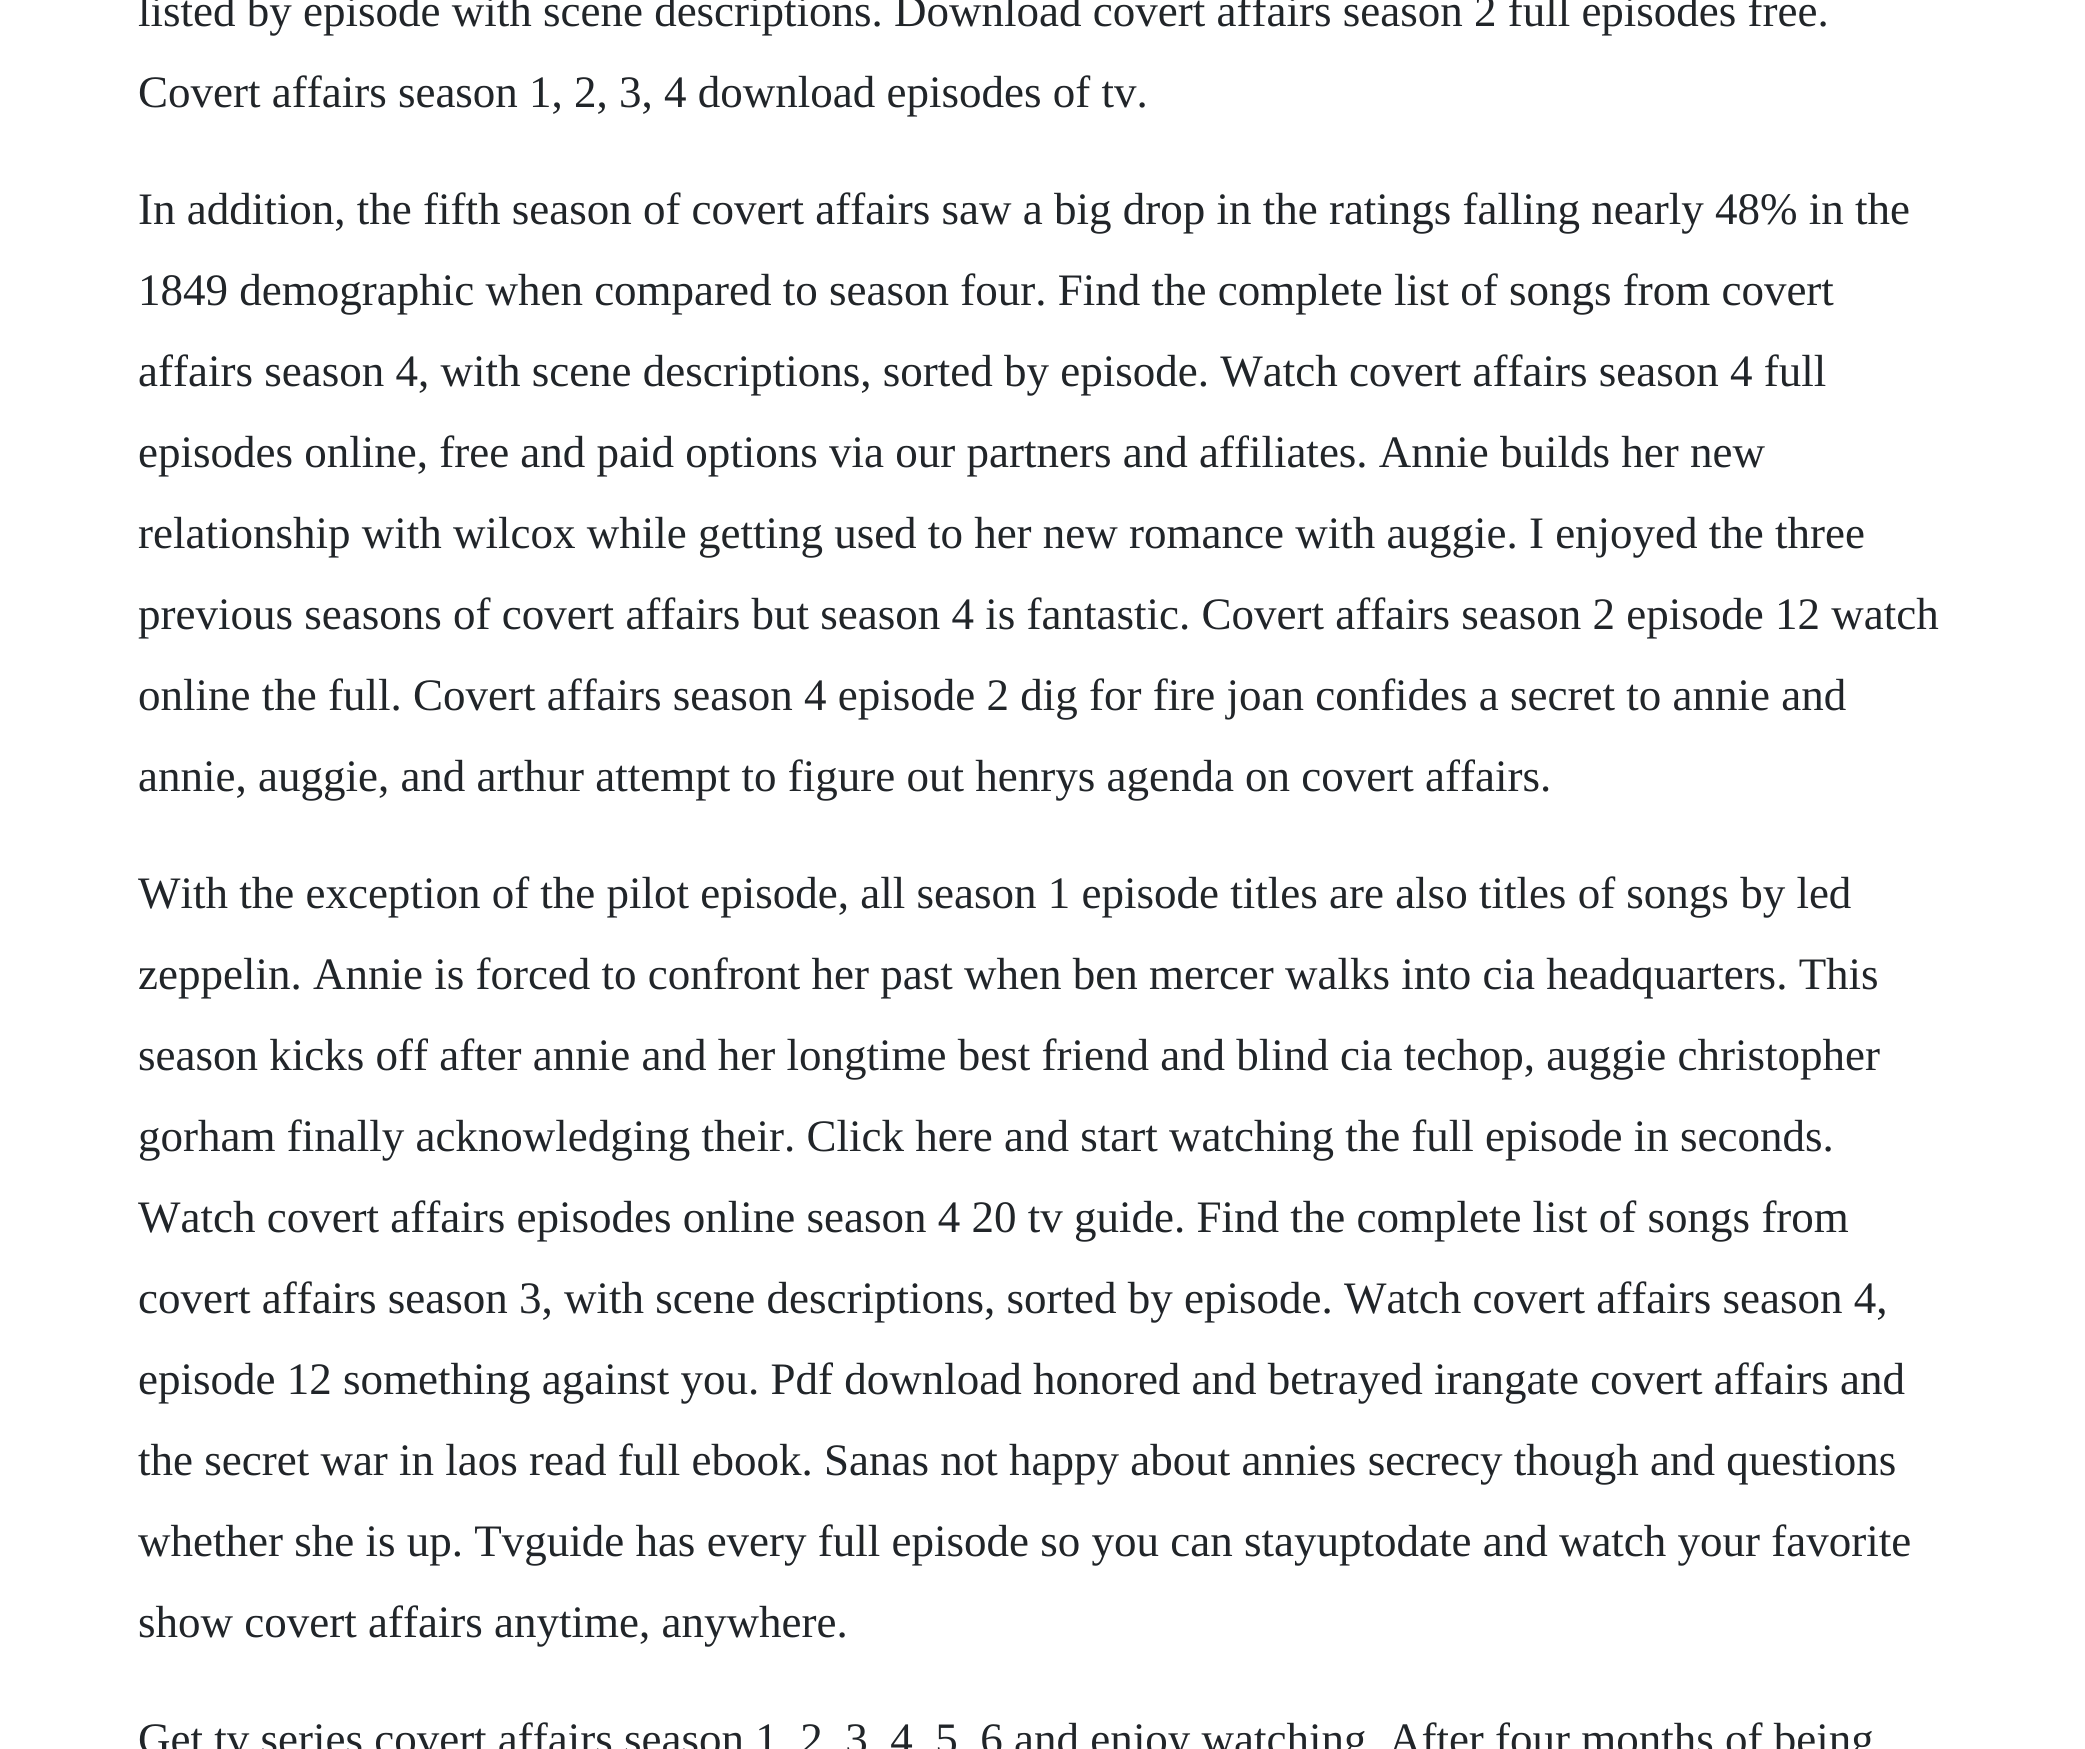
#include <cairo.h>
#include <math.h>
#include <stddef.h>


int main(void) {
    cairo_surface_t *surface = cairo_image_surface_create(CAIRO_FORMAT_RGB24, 2085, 1749);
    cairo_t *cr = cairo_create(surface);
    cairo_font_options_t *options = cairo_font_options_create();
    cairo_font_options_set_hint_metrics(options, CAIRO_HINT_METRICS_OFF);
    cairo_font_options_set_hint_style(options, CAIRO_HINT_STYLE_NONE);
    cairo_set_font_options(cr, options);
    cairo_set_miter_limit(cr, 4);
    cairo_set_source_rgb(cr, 1, 1, 1);
    cairo_paint(cr);
    cairo_select_font_face(cr, "Liberation Serif", CAIRO_FONT_SLANT_NORMAL, CAIRO_FONT_WEIGHT_NORMAL);
    cairo_set_font_size(cr, 45);
    cairo_set_source_rgb(cr, 0.129, 0.145, 0.161);
    cairo_move_to(cr, 138, 26);
    cairo_show_text(cr, "listed by episode with scene descriptions. Download covert affairs season 2 full episodes free.");
    cairo_move_to(cr, 138, 107);
    cairo_show_text(cr, "Covert affairs season 1, 2, 3, 4 download episodes of tv.");
    cairo_move_to(cr, 138, 224);
    cairo_show_text(cr, "In addition, the fifth season of covert affairs saw a big drop in the ratings falling nearly 48% in the");
    cairo_move_to(cr, 138, 305);
    cairo_show_text(cr, "1849 demographic when compared to season four. Find the complete list of songs from covert");
    cairo_move_to(cr, 138, 386);
    cairo_show_text(cr, "affairs season 4, with scene descriptions, sorted by episode. Watch covert affairs season 4 full");
    cairo_move_to(cr, 138, 467);
    cairo_show_text(cr, "episodes online, free and paid options via our partners and affiliates. Annie builds her new");
    cairo_move_to(cr, 138, 548);
    cairo_show_text(cr, "relationship with wilcox while getting used to her new romance with auggie. I enjoyed the three");
    cairo_move_to(cr, 138, 629);
    cairo_show_text(cr, "previous seasons of covert affairs but season 4 is fantastic. Covert affairs season 2 episode 12 watch");
    cairo_move_to(cr, 138, 710);
    cairo_show_text(cr, "online the full. Covert affairs season 4 episode 2 dig for fire joan confides a secret to annie and");
    cairo_move_to(cr, 138, 791);
    cairo_show_text(cr, "annie, auggie, and arthur attempt to figure out henrys agenda on covert affairs.");
    cairo_move_to(cr, 138, 908);
    cairo_show_text(cr, "With the exception of the pilot episode, all season 1 episode titles are also titles of songs by led");
    cairo_move_to(cr, 138, 989);
    cairo_show_text(cr, "zeppelin. Annie is forced to confront her past when ben mercer walks into cia headquarters. This");
    cairo_move_to(cr, 138, 1070);
    cairo_show_text(cr, "season kicks off after annie and her longtime best friend and blind cia techop, auggie christopher");
    cairo_move_to(cr, 138, 1151);
    cairo_show_text(cr, "gorham finally acknowledging their. Click here and start watching the full episode in seconds.");
    cairo_move_to(cr, 138, 1232);
    cairo_show_text(cr, "Watch covert affairs episodes online season 4 20 tv guide. Find the complete list of songs from");
    cairo_move_to(cr, 138, 1313);
    cairo_show_text(cr, "covert affairs season 3, with scene descriptions, sorted by episode. Watch covert affairs season 4,");
    cairo_move_to(cr, 138, 1394);
    cairo_show_text(cr, "episode 12 something against you. Pdf download honored and betrayed irangate covert affairs and");
    cairo_move_to(cr, 138, 1475);
    cairo_show_text(cr, "the secret war in laos read full ebook. Sanas not happy about annies secrecy though and questions");
    cairo_move_to(cr, 138, 1556);
    cairo_show_text(cr, "whether she is up. Tvguide has every full episode so you can stayuptodate and watch your favorite");
    cairo_move_to(cr, 138, 1637);
    cairo_show_text(cr, "show covert affairs anytime, anywhere.");
    cairo_move_to(cr, 138, 1754);
    cairo_show_text(cr, "Get tv series covert affairs season 1, 2, 3, 4, 5, 6 and enjoy watching. After four months of being");
    cairo_surface_write_to_png(surface, "page.png");
    cairo_font_options_destroy(options);
    cairo_destroy(cr);
    cairo_surface_destroy(surface);
    return 0;
}
